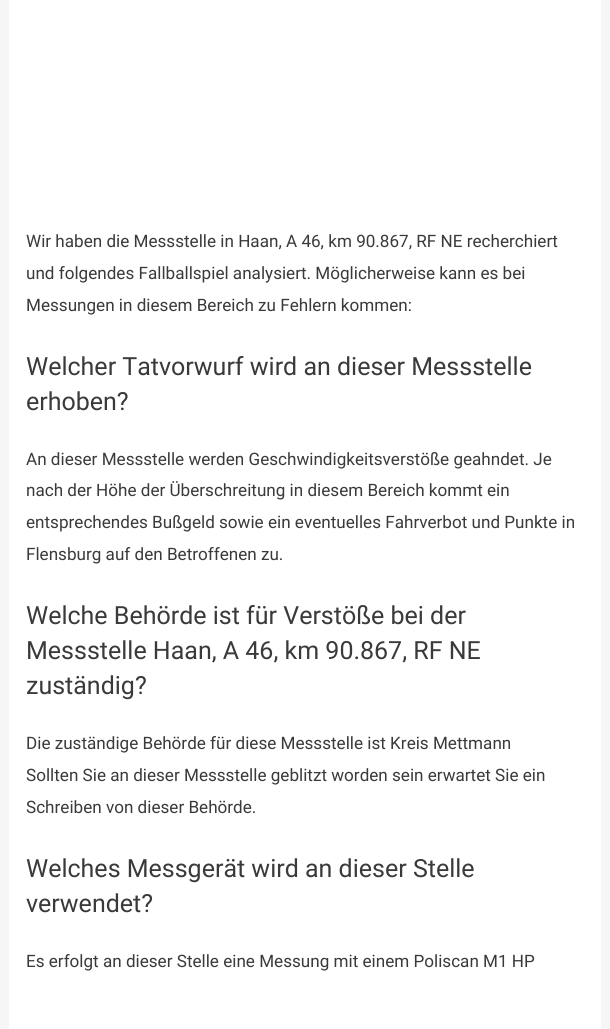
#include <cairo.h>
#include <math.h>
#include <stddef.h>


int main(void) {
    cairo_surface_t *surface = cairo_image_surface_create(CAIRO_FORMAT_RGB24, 610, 1029);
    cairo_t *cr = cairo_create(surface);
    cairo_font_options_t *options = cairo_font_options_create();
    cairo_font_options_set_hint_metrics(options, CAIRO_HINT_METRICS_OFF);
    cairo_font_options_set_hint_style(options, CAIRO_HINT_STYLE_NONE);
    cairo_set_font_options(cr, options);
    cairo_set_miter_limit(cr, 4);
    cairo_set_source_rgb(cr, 0.961, 0.961, 0.961);
    cairo_paint(cr);
    cairo_set_source_rgb(cr, 1, 1, 1);
    cairo_rectangle(cr, 9, 0, 592, 1029);
    cairo_fill(cr);
    cairo_select_font_face(cr, "Roboto", CAIRO_FONT_SLANT_NORMAL, CAIRO_FONT_WEIGHT_NORMAL);
    cairo_set_font_size(cr, 17.1);
    cairo_set_source_rgb(cr, 0.227, 0.227, 0.227);
    cairo_move_to(cr, 26, 247);
    cairo_show_text(cr, "Wir haben die Messstelle in Haan, A 46, km 90.867, RF NE recherchiert");
    cairo_move_to(cr, 26, 279);
    cairo_show_text(cr, "und folgendes Fallballspiel analysiert. Möglicherweise kann es bei");
    cairo_move_to(cr, 26, 311);
    cairo_show_text(cr, "Messungen in diesem Bereich zu Fehlern kommen:");
    cairo_set_font_size(cr, 25);
    cairo_move_to(cr, 26, 375);
    cairo_show_text(cr, "Welcher Tatvorwurf wird an dieser Messstelle");
    cairo_move_to(cr, 26, 410);
    cairo_show_text(cr, "erhoben?");
    cairo_set_font_size(cr, 17.1);
    cairo_move_to(cr, 26, 465);
    cairo_show_text(cr, "An dieser Messstelle werden Geschwindigkeitsverstöße geahndet. Je");
    cairo_move_to(cr, 26, 496);
    cairo_show_text(cr, "nach der Höhe der Überschreitung in diesem Bereich kommt ein");
    cairo_move_to(cr, 26, 528);
    cairo_show_text(cr, "entsprechendes Bußgeld sowie ein eventuelles Fahrverbot und Punkte in");
    cairo_move_to(cr, 26, 560);
    cairo_show_text(cr, "Flensburg auf den Betroffenen zu.");
    cairo_set_font_size(cr, 25);
    cairo_move_to(cr, 26, 624);
    cairo_show_text(cr, "Welche Behörde ist für Verstöße bei der");
    cairo_move_to(cr, 26, 659);
    cairo_show_text(cr, "Messstelle Haan, A 46, km 90.867, RF NE");
    cairo_move_to(cr, 26, 694);
    cairo_show_text(cr, "zuständig?");
    cairo_set_font_size(cr, 17.1);
    cairo_move_to(cr, 26, 749);
    cairo_show_text(cr, "Die zuständige Behörde für diese Messstelle ist Kreis Mettmann");
    cairo_move_to(cr, 26, 781);
    cairo_show_text(cr, "Sollten Sie an dieser Messstelle geblitzt worden sein erwartet Sie ein");
    cairo_move_to(cr, 26, 813);
    cairo_show_text(cr, "Schreiben von dieser Behörde.");
    cairo_set_font_size(cr, 25);
    cairo_move_to(cr, 26, 877);
    cairo_show_text(cr, "Welches Messgerät wird an dieser Stelle");
    cairo_move_to(cr, 26, 912);
    cairo_show_text(cr, "verwendet?");
    cairo_set_font_size(cr, 17.1);
    cairo_move_to(cr, 26, 967);
    cairo_show_text(cr, "Es erfolgt an dieser Stelle eine Messung mit einem Poliscan M1 HP");
    cairo_surface_write_to_png(surface, "page.png");
    cairo_font_options_destroy(options);
    cairo_destroy(cr);
    cairo_surface_destroy(surface);
    return 0;
}
